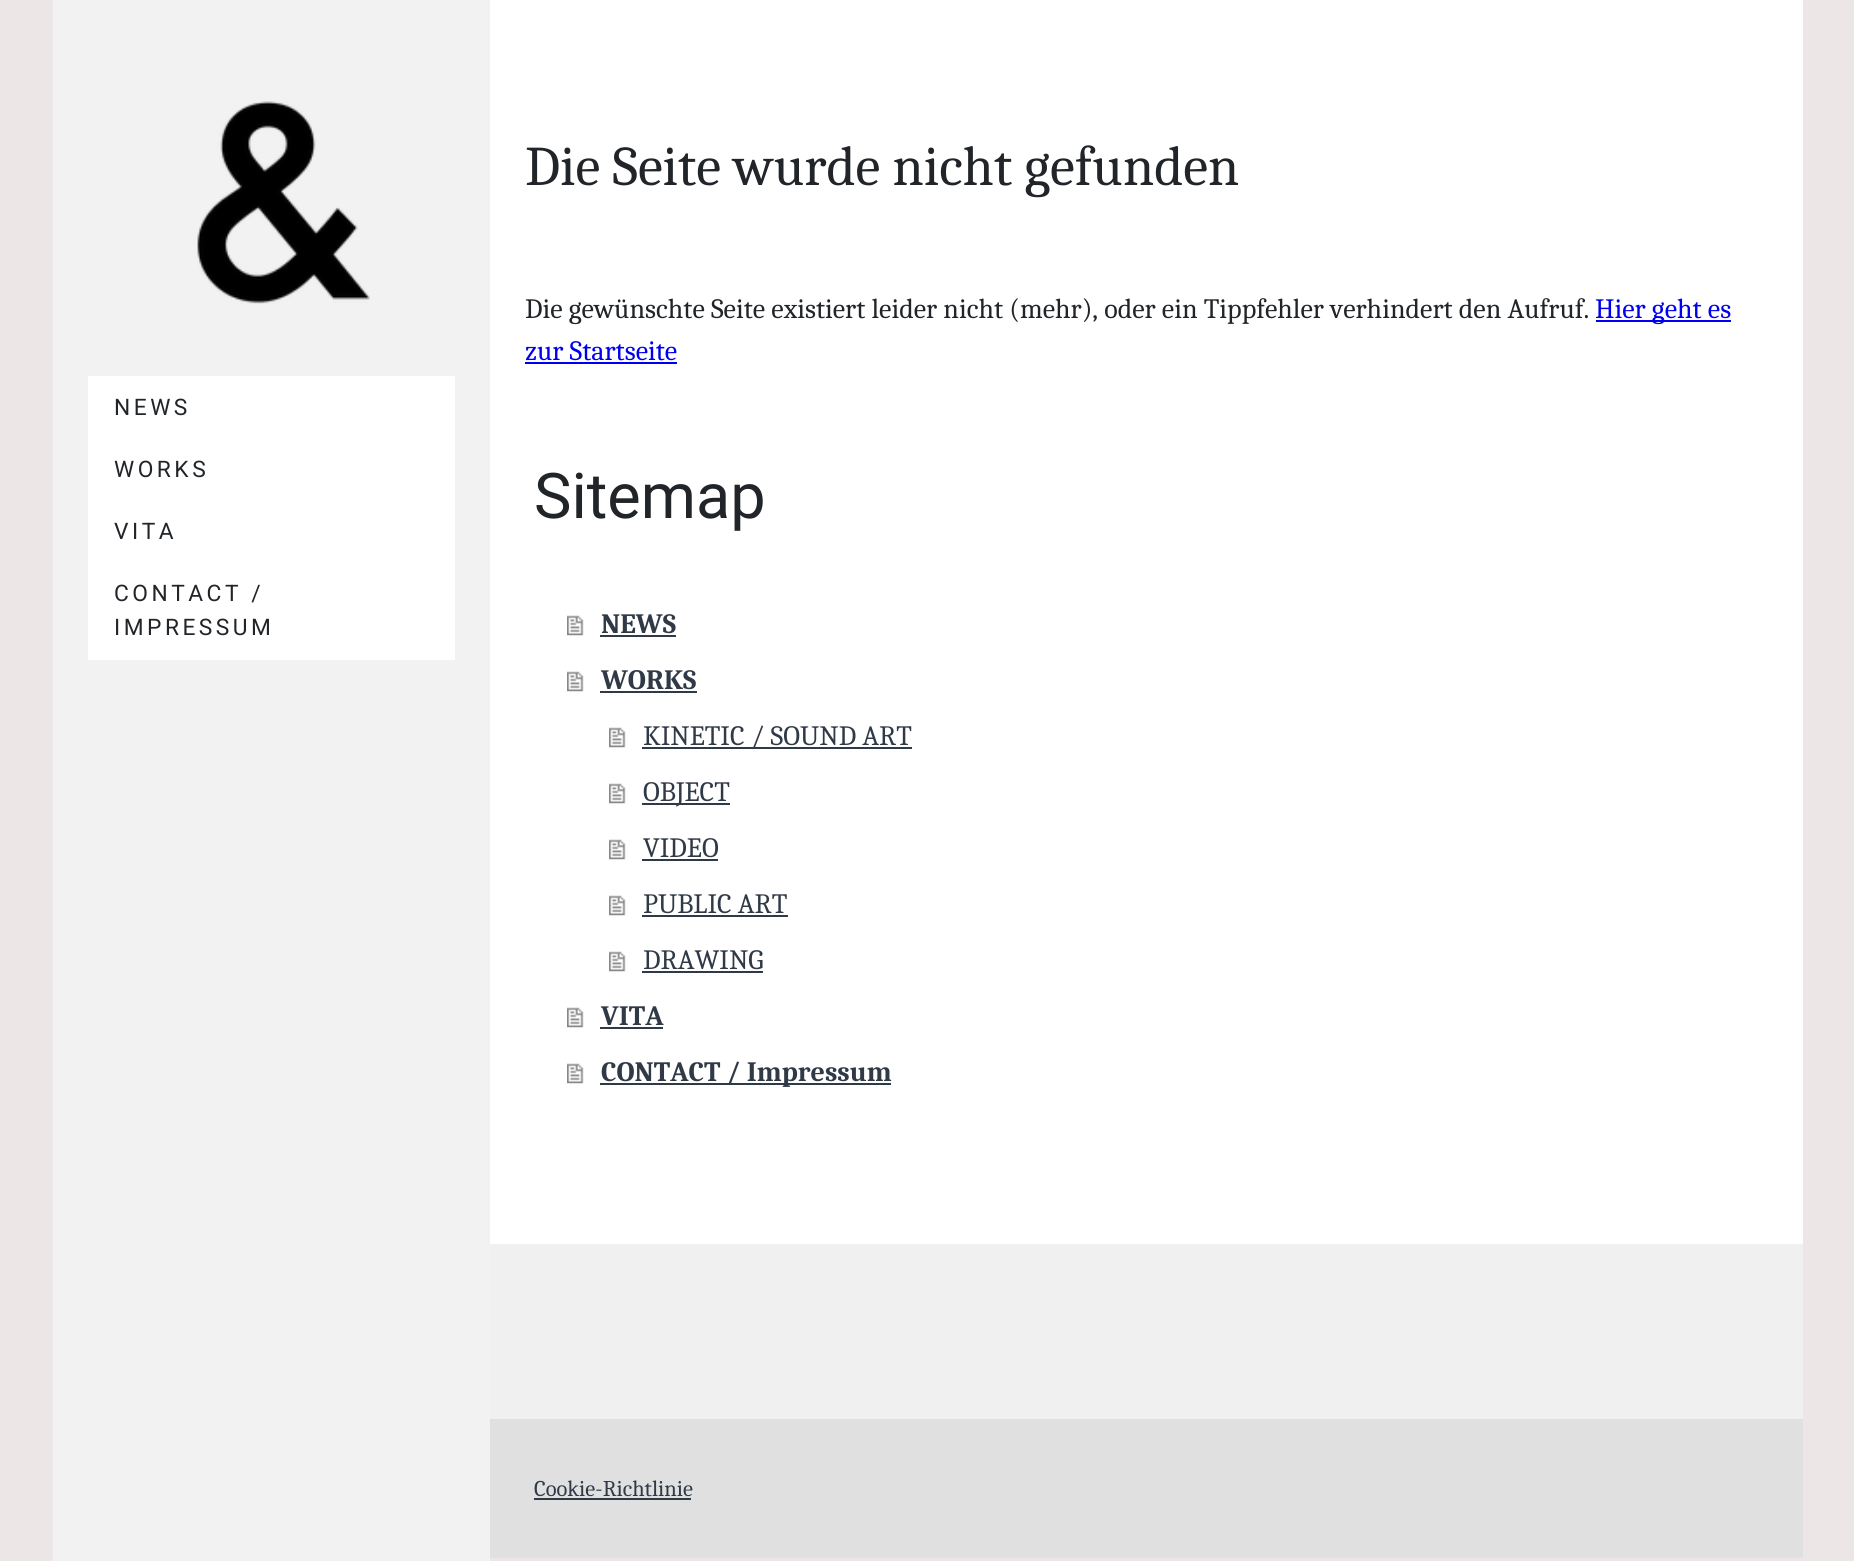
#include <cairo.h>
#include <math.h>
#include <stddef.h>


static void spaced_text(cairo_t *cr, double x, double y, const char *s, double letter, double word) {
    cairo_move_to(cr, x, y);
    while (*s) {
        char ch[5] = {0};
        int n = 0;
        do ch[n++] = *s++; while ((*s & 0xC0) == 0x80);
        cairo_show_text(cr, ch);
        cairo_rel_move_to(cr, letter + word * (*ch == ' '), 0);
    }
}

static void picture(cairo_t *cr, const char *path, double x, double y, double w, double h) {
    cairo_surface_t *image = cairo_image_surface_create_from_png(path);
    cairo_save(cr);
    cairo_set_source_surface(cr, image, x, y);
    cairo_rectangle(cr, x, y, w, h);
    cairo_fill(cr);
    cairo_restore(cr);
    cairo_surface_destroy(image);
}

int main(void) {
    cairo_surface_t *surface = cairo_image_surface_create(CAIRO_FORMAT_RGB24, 1854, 1561);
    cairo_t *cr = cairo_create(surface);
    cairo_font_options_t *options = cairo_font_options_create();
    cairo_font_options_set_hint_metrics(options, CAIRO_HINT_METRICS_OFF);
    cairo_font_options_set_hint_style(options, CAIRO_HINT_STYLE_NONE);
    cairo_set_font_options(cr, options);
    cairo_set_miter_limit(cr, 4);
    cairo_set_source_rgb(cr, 0.922, 0.902, 0.902);
    cairo_paint(cr);
    cairo_set_source_rgb(cr, 0.949, 0.949, 0.949);
    cairo_rectangle(cr, 53, 0, 437, 1561);
    cairo_fill(cr);
    picture(cr, "img1.png", 197, 101, 173, 203);
    cairo_set_source_rgb(cr, 1, 1, 1);
    cairo_rectangle(cr, 88, 376, 367, 284);
    cairo_fill(cr);
    cairo_select_font_face(cr, "Roboto", CAIRO_FONT_SLANT_NORMAL, CAIRO_FONT_WEIGHT_NORMAL);
    cairo_set_font_size(cr, 22.75);
    cairo_set_source_rgb(cr, 0.129, 0.145, 0.161);
    spaced_text(cr, 114, 415, "NEWS", 3.5, 0);
    spaced_text(cr, 114, 477, "WORKS", 3.5, 0);
    spaced_text(cr, 114, 539, "VITA", 3.5, 0);
    spaced_text(cr, 114, 601, "CONTACT /", 3.5, 0);
    spaced_text(cr, 114, 635, "IMPRESSUM", 3.5, 0);
    cairo_set_source_rgb(cr, 1, 1, 1);
    cairo_rectangle(cr, 490, 0, 1313, 1244);
    cairo_fill(cr);
    cairo_select_font_face(cr, "Caladea", CAIRO_FONT_SLANT_NORMAL, CAIRO_FONT_WEIGHT_NORMAL);
    cairo_set_font_size(cr, 56);
    cairo_set_source_rgb(cr, 0.129, 0.145, 0.161);
    cairo_move_to(cr, 525, 185);
    cairo_show_text(cr, "Die Seite wurde nicht gefunden");
    cairo_set_font_size(cr, 28);
    cairo_move_to(cr, 525, 318);
    cairo_show_text(cr, "Die gewünschte Seite existiert leider nicht (mehr), oder ein Tippfehler verhindert den Aufruf.");
    cairo_set_source_rgb(cr, 0, 0, 0.933);
    cairo_rectangle(cr, 1596, 320, 135, 2);
    cairo_fill(cr);
    cairo_move_to(cr, 1595, 318);
    cairo_show_text(cr, "Hier geht es");
    cairo_move_to(cr, 525, 360);
    cairo_show_text(cr, "zur Startseite");
    cairo_rectangle(cr, 525, 362, 152, 2);
    cairo_fill(cr);
    cairo_select_font_face(cr, "Roboto", CAIRO_FONT_SLANT_NORMAL, CAIRO_FONT_WEIGHT_NORMAL);
    cairo_set_font_size(cr, 63);
    cairo_set_source_rgb(cr, 0.129, 0.145, 0.161);
    cairo_move_to(cr, 534, 518);
    cairo_show_text(cr, "Sitemap");
    picture(cr, "img2.png", 567, 615, 17, 21);
    cairo_select_font_face(cr, "Caladea", CAIRO_FONT_SLANT_NORMAL, CAIRO_FONT_WEIGHT_BOLD);
    cairo_set_font_size(cr, 28);
    cairo_set_source_rgb(cr, 0.188, 0.227, 0.278);
    cairo_move_to(cr, 601, 633);
    cairo_show_text(cr, "NEWS");
    cairo_rectangle(cr, 600, 635, 76, 2);
    cairo_fill(cr);
    picture(cr, "img2.png", 567, 671, 17, 21);
    cairo_move_to(cr, 601, 689);
    cairo_show_text(cr, "WORKS");
    cairo_rectangle(cr, 600, 691, 97, 2);
    cairo_fill(cr);
    picture(cr, "img3.png", 609, 727, 17, 21);
    cairo_rectangle(cr, 642, 747, 270, 2);
    cairo_fill(cr);
    cairo_select_font_face(cr, "Caladea", CAIRO_FONT_SLANT_NORMAL, CAIRO_FONT_WEIGHT_NORMAL);
    cairo_move_to(cr, 643, 745);
    cairo_show_text(cr, "KINETIC / SOUND ART");
    picture(cr, "img3.png", 609, 783, 17, 21);
    cairo_rectangle(cr, 642, 803, 88, 2);
    cairo_fill(cr);
    cairo_move_to(cr, 643, 801);
    cairo_show_text(cr, "OBJECT");
    picture(cr, "img3.png", 609, 839, 17, 21);
    cairo_move_to(cr, 643, 857);
    cairo_show_text(cr, "VIDEO");
    cairo_rectangle(cr, 642, 859, 76, 2);
    cairo_fill(cr);
    picture(cr, "img3.png", 609, 895, 17, 21);
    cairo_move_to(cr, 643, 913);
    cairo_show_text(cr, "PUBLIC ART");
    cairo_rectangle(cr, 642, 915, 146, 2);
    cairo_fill(cr);
    picture(cr, "img3.png", 609, 951, 17, 21);
    cairo_move_to(cr, 643, 969);
    cairo_show_text(cr, "DRAWING");
    cairo_rectangle(cr, 642, 971, 121, 2);
    cairo_fill(cr);
    picture(cr, "img2.png", 567, 1007, 17, 21);
    cairo_select_font_face(cr, "Caladea", CAIRO_FONT_SLANT_NORMAL, CAIRO_FONT_WEIGHT_BOLD);
    cairo_move_to(cr, 601, 1025);
    cairo_show_text(cr, "VITA");
    cairo_rectangle(cr, 600, 1027, 63, 2);
    cairo_fill(cr);
    picture(cr, "img2.png", 567, 1063, 17, 21);
    cairo_rectangle(cr, 600, 1083, 291, 2);
    cairo_fill(cr);
    cairo_move_to(cr, 601, 1081);
    cairo_show_text(cr, "CONTACT / Impressum");
    cairo_set_source_rgb(cr, 0.941, 0.941, 0.941);
    cairo_rectangle(cr, 490, 1244, 1313, 175);
    cairo_fill(cr);
    cairo_set_source_rgb(cr, 0.878, 0.878, 0.878);
    cairo_rectangle(cr, 490, 1419, 1313, 139);
    cairo_fill(cr);
    cairo_select_font_face(cr, "Caladea", CAIRO_FONT_SLANT_NORMAL, CAIRO_FONT_WEIGHT_NORMAL);
    cairo_set_font_size(cr, 22.5);
    cairo_set_source_rgb(cr, 0.188, 0.227, 0.278);
    cairo_move_to(cr, 534, 1496);
    cairo_show_text(cr, "Cookie-Richtlinie");
    cairo_rectangle(cr, 534, 1498, 157, 2);
    cairo_fill(cr);
    cairo_surface_write_to_png(surface, "page.png");
    cairo_font_options_destroy(options);
    cairo_destroy(cr);
    cairo_surface_destroy(surface);
    return 0;
}
